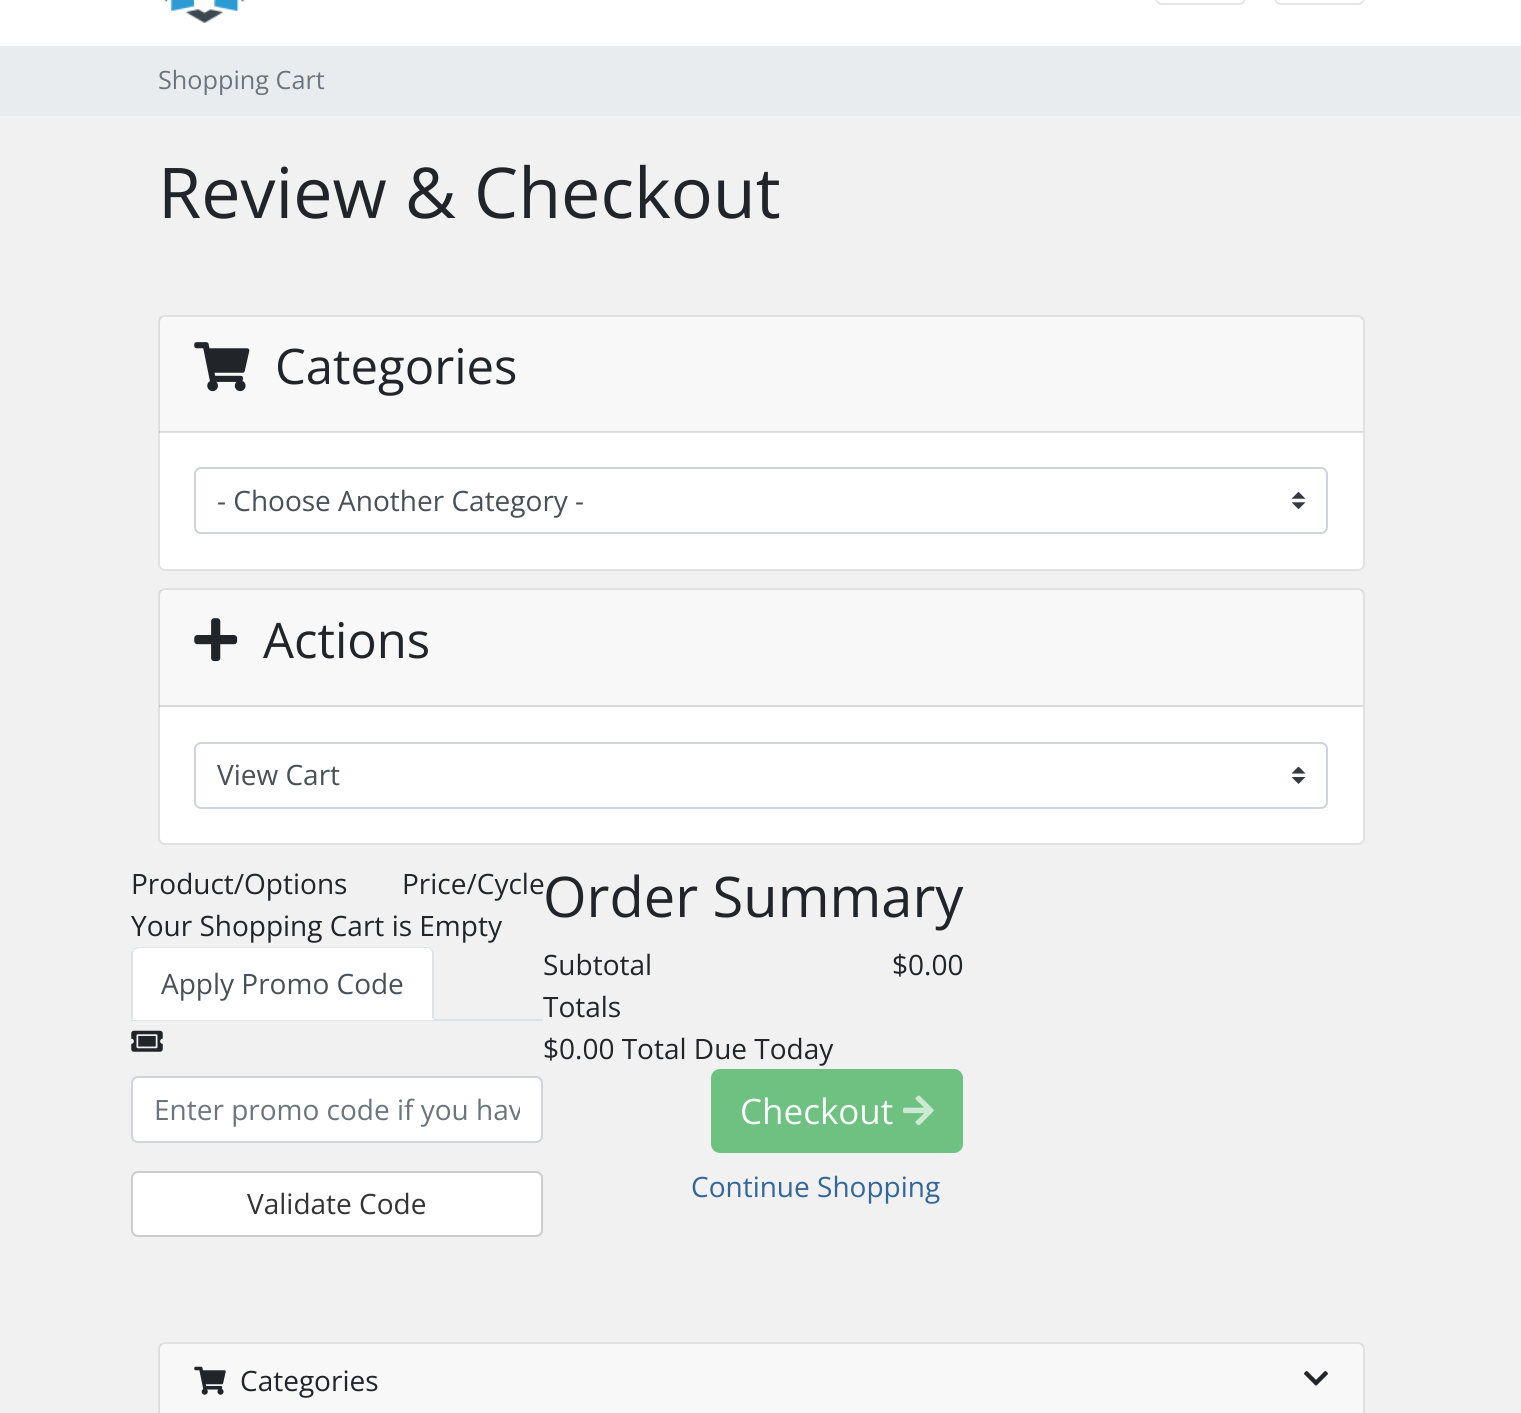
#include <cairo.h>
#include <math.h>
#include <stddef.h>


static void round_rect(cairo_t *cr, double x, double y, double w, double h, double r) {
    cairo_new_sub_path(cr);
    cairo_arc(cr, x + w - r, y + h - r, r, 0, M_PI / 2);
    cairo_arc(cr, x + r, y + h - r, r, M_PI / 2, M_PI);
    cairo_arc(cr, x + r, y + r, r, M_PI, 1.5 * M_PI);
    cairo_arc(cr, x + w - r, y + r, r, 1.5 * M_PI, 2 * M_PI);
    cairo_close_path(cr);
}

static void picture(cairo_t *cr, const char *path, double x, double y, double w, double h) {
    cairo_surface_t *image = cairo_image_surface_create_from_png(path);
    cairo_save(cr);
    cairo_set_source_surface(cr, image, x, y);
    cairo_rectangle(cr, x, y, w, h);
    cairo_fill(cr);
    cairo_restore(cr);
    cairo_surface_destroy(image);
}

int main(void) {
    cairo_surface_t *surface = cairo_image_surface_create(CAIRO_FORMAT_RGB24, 1521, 1413);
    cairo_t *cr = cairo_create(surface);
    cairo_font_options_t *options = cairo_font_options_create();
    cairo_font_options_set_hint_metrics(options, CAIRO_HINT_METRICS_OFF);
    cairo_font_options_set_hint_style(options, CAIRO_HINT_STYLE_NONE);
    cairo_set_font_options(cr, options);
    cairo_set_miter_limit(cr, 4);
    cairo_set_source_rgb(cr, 0.945, 0.945, 0.945);
    cairo_paint(cr);
    cairo_set_source_rgb(cr, 1, 1, 1);
    cairo_rectangle(cr, 0, 0, 1521, 46);
    cairo_fill(cr);
    round_rect(cr, 1156, -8, 89, 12, 6);
    cairo_set_source_rgb(cr, 0.898, 0.898, 0.898);
    cairo_stroke(cr);
    round_rect(cr, 1275, -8, 89, 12, 6);
    cairo_stroke(cr);
    picture(cr, "img1.png", 163, 0, 83, 23);
    cairo_set_source_rgb(cr, 0.914, 0.925, 0.937);
    cairo_rectangle(cr, 0, 46, 1521, 70);
    cairo_fill(cr);
    cairo_select_font_face(cr, "Open Sans", CAIRO_FONT_SLANT_NORMAL, CAIRO_FONT_WEIGHT_NORMAL);
    cairo_set_font_size(cr, 25.25);
    cairo_set_source_rgb(cr, 0.424, 0.459, 0.49);
    cairo_move_to(cr, 158, 89);
    cairo_show_text(cr, "Shopping Cart");
    cairo_set_font_size(cr, 70);
    cairo_set_source_rgb(cr, 0.129, 0.145, 0.161);
    cairo_move_to(cr, 158, 218);
    cairo_show_text(cr, "Review & Checkout");
    cairo_set_source_rgb(cr, 1, 1, 1);
    round_rect(cr, 158, 315, 1207, 256, 7);
    cairo_fill(cr);
    round_rect(cr, 159, 316, 1205, 254, 6);
    cairo_set_source_rgba(cr, 0, 0, 0, 0.12);
    cairo_stroke(cr);
    cairo_set_source_rgba(cr, 0, 0, 0, 0.03);
    cairo_rectangle(cr, 159, 317, 1204, 115);
    cairo_fill(cr);
    cairo_set_source_rgba(cr, 0, 0, 0, 0.12);
    cairo_rectangle(cr, 159, 431, 1204, 2);
    cairo_fill(cr);
    picture(cr, "img2.png", 194, 342, 56, 50);
    cairo_set_font_size(cr, 49);
    cairo_set_source_rgb(cr, 0.129, 0.145, 0.161);
    cairo_move_to(cr, 275, 384);
    cairo_show_text(cr, "Categories");
    picture(cr, "img3.png", 1292, 492, 14, 17);
    round_rect(cr, 195, 468, 1132, 65, 6);
    cairo_set_source_rgb(cr, 0.808, 0.831, 0.855);
    cairo_stroke(cr);
    cairo_set_font_size(cr, 28);
    cairo_set_source_rgb(cr, 0.286, 0.314, 0.341);
    cairo_move_to(cr, 217, 511);
    cairo_show_text(cr, "- Choose Another Category -");
    cairo_set_source_rgb(cr, 1, 1, 1);
    round_rect(cr, 158, 588, 1207, 257, 7);
    cairo_fill(cr);
    round_rect(cr, 159, 589, 1205, 255, 6);
    cairo_set_source_rgba(cr, 0, 0, 0, 0.12);
    cairo_stroke(cr);
    cairo_set_source_rgba(cr, 0, 0, 0, 0.03);
    cairo_rectangle(cr, 159, 590, 1204, 117);
    cairo_fill(cr);
    cairo_set_source_rgba(cr, 0, 0, 0, 0.12);
    cairo_rectangle(cr, 159, 705, 1204, 2);
    cairo_fill(cr);
    picture(cr, "img4.png", 194, 618, 44, 44);
    cairo_set_font_size(cr, 49);
    cairo_set_source_rgb(cr, 0.129, 0.145, 0.161);
    cairo_move_to(cr, 263, 658);
    cairo_show_text(cr, "Actions");
    cairo_save(cr);
    cairo_rectangle(cr, 1292, 767, 14, 17);
    cairo_clip(cr);
    cairo_set_source_rgb(cr, 0.204, 0.227, 0.251);
    cairo_new_path(cr);
    cairo_move_to(cr, 1298.5, 766.5);
    cairo_line_to(cr, 1291.5, 773.5);
    cairo_line_to(cr, 1305.5, 773.5);
    cairo_close_path(cr);
    cairo_move_to(cr, 1298.5, 784);
    cairo_line_to(cr, 1291.5, 777);
    cairo_line_to(cr, 1305.5, 777);
    cairo_close_path(cr);
    cairo_fill(cr);
    cairo_restore(cr);
    round_rect(cr, 195, 743, 1132, 65, 6);
    cairo_set_source_rgb(cr, 0.808, 0.831, 0.855);
    cairo_stroke(cr);
    cairo_set_font_size(cr, 28);
    cairo_set_source_rgb(cr, 0.286, 0.314, 0.341);
    cairo_move_to(cr, 217, 785);
    cairo_show_text(cr, "View Cart");
    cairo_set_source_rgb(cr, 0.129, 0.145, 0.161);
    cairo_move_to(cr, 131, 894);
    cairo_show_text(cr, "Product/Options");
    cairo_move_to(cr, 402, 894);
    cairo_show_text(cr, "Price/Cycle");
    cairo_move_to(cr, 131, 936);
    cairo_show_text(cr, "Your Shopping Cart is Empty");
    cairo_set_source_rgb(cr, 0.871, 0.886, 0.902);
    cairo_rectangle(cr, 131, 1019, 412, 2);
    cairo_fill(cr);
    cairo_set_source_rgb(cr, 1, 1, 1);
    cairo_new_path(cr);
    cairo_move_to(cr, 138, 947);
    cairo_line_to(cr, 427, 947);
    cairo_curve_to(cr, 431, 947, 434, 950, 434, 954);
    cairo_line_to(cr, 434, 1020);
    cairo_line_to(cr, 131, 1020);
    cairo_line_to(cr, 131, 954);
    cairo_curve_to(cr, 131, 950, 134, 947, 138, 947);
    cairo_close_path(cr);
    cairo_fill(cr);
    cairo_set_source_rgb(cr, 0.871, 0.886, 0.902);
    cairo_new_path(cr);
    cairo_move_to(cr, 138, 947);
    cairo_curve_to(cr, 136, 947, 134, 948, 133, 949);
    cairo_line_to(cr, 134, 950);
    cairo_line_to(cr, 136, 949);
    cairo_line_to(cr, 138, 948);
    cairo_line_to(cr, 428, 948);
    cairo_line_to(cr, 431, 950);
    cairo_line_to(cr, 432, 949);
    cairo_curve_to(cr, 431, 948, 429, 947, 427, 947);
    cairo_close_path(cr);
    cairo_fill(cr);
    cairo_new_path(cr);
    cairo_move_to(cr, 432, 949);
    cairo_curve_to(cr, 433, 950, 434, 952, 434, 954);
    cairo_line_to(cr, 434, 1020);
    cairo_line_to(cr, 432, 1018);
    cairo_line_to(cr, 432, 954);
    cairo_curve_to(cr, 432, 953, 432, 951, 431, 950);
    cairo_close_path(cr);
    cairo_fill(cr);
    cairo_set_source_rgb(cr, 1, 1, 1);
    cairo_new_path(cr);
    cairo_move_to(cr, 434, 1020);
    cairo_line_to(cr, 132, 1020);
    cairo_line_to(cr, 134, 1018);
    cairo_line_to(cr, 432, 1018);
    cairo_close_path(cr);
    cairo_fill(cr);
    cairo_set_source_rgb(cr, 0.871, 0.886, 0.902);
    cairo_new_path(cr);
    cairo_move_to(cr, 131, 952);
    cairo_line_to(cr, 133, 949);
    cairo_line_to(cr, 134, 950);
    cairo_curve_to(cr, 134, 951, 133, 952, 133, 954);
    cairo_line_to(cr, 133, 1018);
    cairo_line_to(cr, 134, 1018);
    cairo_line_to(cr, 131, 1020);
    cairo_close_path(cr);
    cairo_fill(cr);
    cairo_set_source_rgb(cr, 0.286, 0.314, 0.341);
    cairo_move_to(cr, 161, 994);
    cairo_show_text(cr, "Apply Promo Code");
    picture(cr, "img5.png", 131, 1030, 32, 22);
    cairo_set_source_rgb(cr, 1, 1, 1);
    round_rect(cr, 132, 1077, 410, 65, 6);
    cairo_fill_preserve(cr);
    cairo_set_source_rgb(cr, 0.808, 0.831, 0.855);
    cairo_stroke(cr);
    cairo_save(cr);
    cairo_rectangle(cr, 154, 1090, 366, 39);
    cairo_clip(cr);
    cairo_set_source_rgb(cr, 0.424, 0.459, 0.49);
    cairo_move_to(cr, 154, 1120);
    cairo_show_text(cr, "Enter promo code if you hav");
    cairo_restore(cr);
    cairo_set_source_rgb(cr, 1, 1, 1);
    round_rect(cr, 132, 1172, 410, 64, 6);
    cairo_fill_preserve(cr);
    cairo_set_source_rgb(cr, 0.8, 0.8, 0.8);
    cairo_stroke(cr);
    cairo_set_source_rgb(cr, 0.2, 0.2, 0.2);
    cairo_move_to(cr, 247, 1214);
    cairo_show_text(cr, "Validate Code");
    cairo_set_font_size(cr, 56);
    cairo_set_source_rgb(cr, 0.129, 0.145, 0.161);
    cairo_move_to(cr, 543, 917);
    cairo_show_text(cr, "Order Summary");
    cairo_set_font_size(cr, 28);
    cairo_move_to(cr, 543, 975);
    cairo_show_text(cr, "Subtotal");
    cairo_move_to(cr, 892, 975);
    cairo_show_text(cr, "$0.00");
    cairo_move_to(cr, 543, 1017);
    cairo_show_text(cr, "Totals");
    cairo_move_to(cr, 543, 1059);
    cairo_show_text(cr, "$0.00 Total Due Today");
    cairo_set_source_rgb(cr, 0.431, 0.757, 0.506);
    round_rect(cr, 712, 1070, 250, 82, 8);
    cairo_fill_preserve(cr);
    cairo_stroke(cr);
    cairo_set_font_size(cr, 35);
    cairo_set_source_rgb(cr, 0.98, 0.98, 0.98);
    cairo_move_to(cr, 740, 1124);
    cairo_show_text(cr, "Checkout");
    picture(cr, "img6.png", 903, 1095, 31, 31);
    cairo_set_font_size(cr, 28);
    cairo_set_source_rgb(cr, 0.2, 0.4, 0.6);
    cairo_move_to(cr, 691, 1197);
    cairo_show_text(cr, "Continue Shopping");
    cairo_set_source_rgb(cr, 1, 1, 1);
    round_rect(cr, 158, 1342, 1207, 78, 7);
    cairo_fill(cr);
    round_rect(cr, 159, 1343, 1205, 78, 6);
    cairo_set_source_rgba(cr, 0, 0, 0, 0.12);
    cairo_stroke(cr);
    cairo_set_source_rgba(cr, 0, 0, 0, 0.03);
    cairo_rectangle(cr, 159, 1344, 1204, 69);
    cairo_fill(cr);
    picture(cr, "img7.png", 194, 1366, 32, 29);
    cairo_set_source_rgb(cr, 0.129, 0.145, 0.161);
    cairo_move_to(cr, 240, 1391);
    cairo_show_text(cr, "Categories");
    picture(cr, "img8.png", 1304, 1371, 24, 15);
    cairo_surface_write_to_png(surface, "page.png");
    cairo_font_options_destroy(options);
    cairo_destroy(cr);
    cairo_surface_destroy(surface);
    return 0;
}
